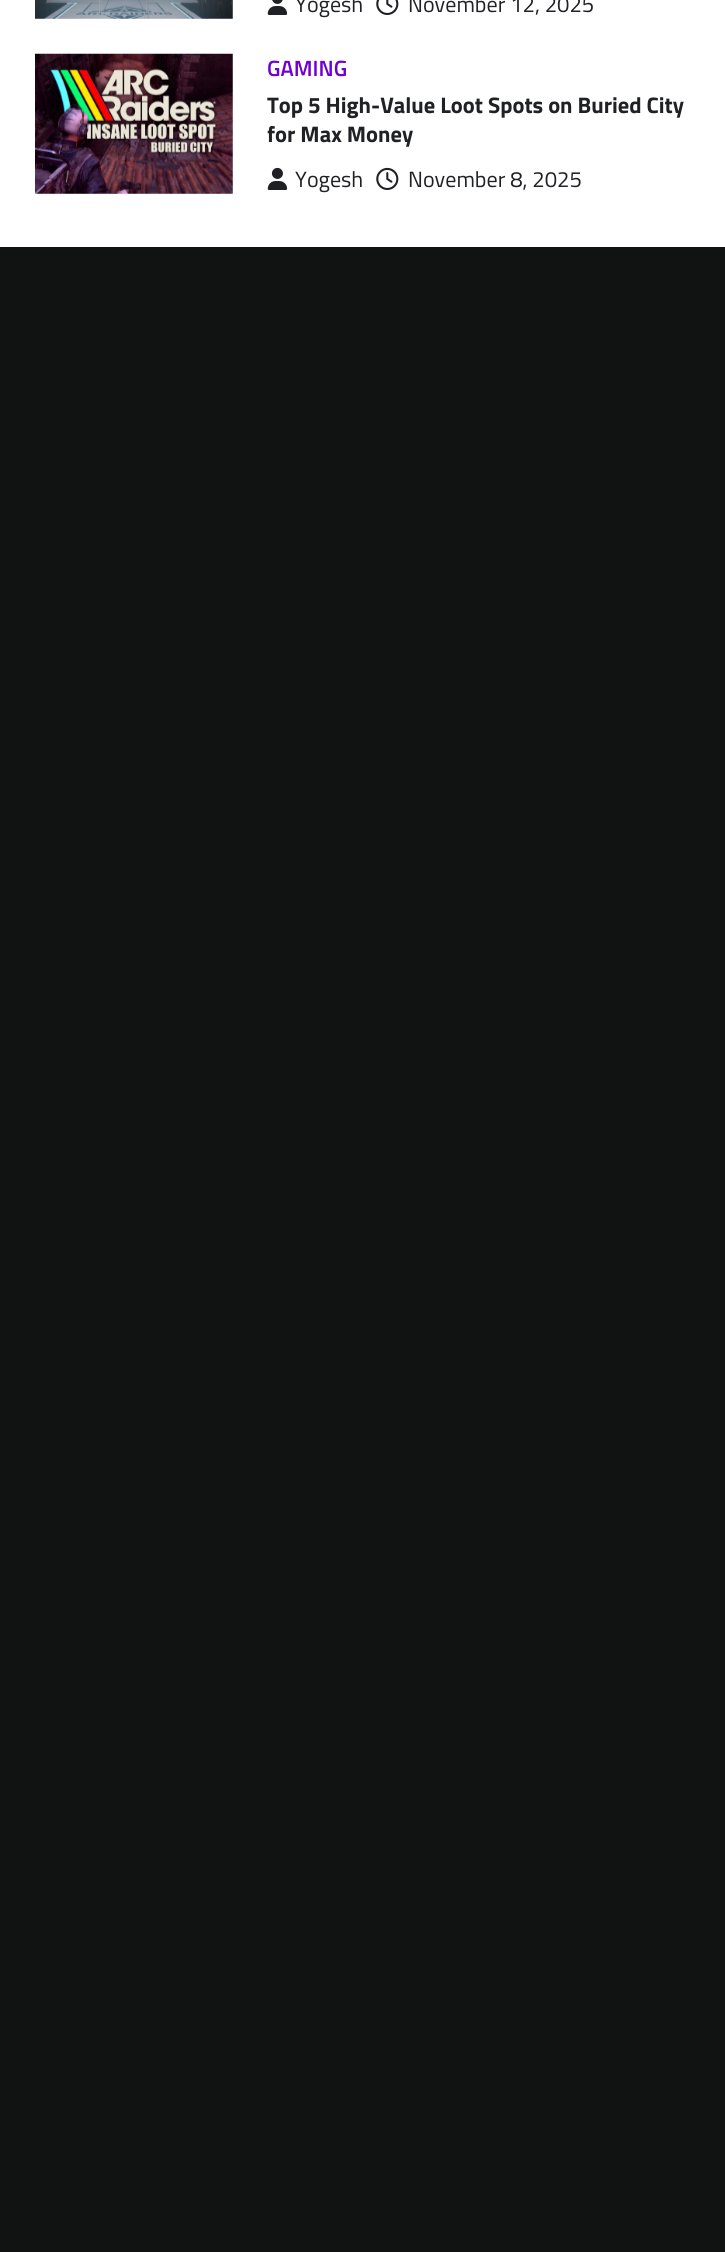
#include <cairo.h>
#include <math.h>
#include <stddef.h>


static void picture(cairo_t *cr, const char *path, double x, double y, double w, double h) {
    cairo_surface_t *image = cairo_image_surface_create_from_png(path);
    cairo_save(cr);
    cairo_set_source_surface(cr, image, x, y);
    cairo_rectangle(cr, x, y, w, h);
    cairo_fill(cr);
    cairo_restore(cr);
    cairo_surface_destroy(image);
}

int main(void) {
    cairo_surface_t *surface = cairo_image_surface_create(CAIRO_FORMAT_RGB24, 725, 2252);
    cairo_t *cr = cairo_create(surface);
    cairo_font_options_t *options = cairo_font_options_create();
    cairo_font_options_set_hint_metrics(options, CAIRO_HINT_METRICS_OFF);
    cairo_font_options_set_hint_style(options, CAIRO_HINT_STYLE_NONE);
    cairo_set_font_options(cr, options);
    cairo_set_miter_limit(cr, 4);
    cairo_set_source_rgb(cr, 1, 1, 1);
    cairo_paint(cr);
    cairo_set_source_rgb(cr, 0.941, 0.949, 0.969);
    cairo_rectangle(cr, 35, 0, 198, 19);
    cairo_fill(cr);
    picture(cr, "img1.png", 35, 0, 198, 19);
    picture(cr, "img2.png", 267, 0, 21, 15);
    cairo_select_font_face(cr, "Titillium Web", CAIRO_FONT_SLANT_NORMAL, CAIRO_FONT_WEIGHT_NORMAL);
    cairo_set_font_size(cr, 22.1);
    cairo_set_source_rgb(cr, 0.125, 0.129, 0.141);
    cairo_move_to(cr, 295, 12);
    cairo_show_text(cr, "Yogesh");
    picture(cr, "img3.png", 376, 0, 23, 15);
    cairo_move_to(cr, 408, 12);
    cairo_show_text(cr, "November 12, 2025");
    cairo_set_source_rgb(cr, 0.941, 0.949, 0.969);
    cairo_rectangle(cr, 35, 54, 198, 140);
    cairo_fill(cr);
    picture(cr, "img4.png", 35, 53, 198, 141);
    cairo_select_font_face(cr, "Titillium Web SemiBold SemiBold", CAIRO_FONT_SLANT_NORMAL, CAIRO_FONT_WEIGHT_NORMAL);
    cairo_set_source_rgb(cr, 0.435, 0, 0.82);
    cairo_move_to(cr, 267, 76);
    cairo_show_text(cr, "GAMING");
    cairo_select_font_face(cr, "Titillium Web", CAIRO_FONT_SLANT_NORMAL, CAIRO_FONT_WEIGHT_BOLD);
    cairo_set_font_size(cr, 22.5);
    cairo_set_source_rgb(cr, 0.125, 0.129, 0.141);
    cairo_move_to(cr, 267, 113);
    cairo_show_text(cr, "Top 5 High-Value Loot Spots on Buried City");
    cairo_move_to(cr, 267, 142);
    cairo_show_text(cr, "for Max Money");
    picture(cr, "img5.png", 267, 167, 21, 23);
    cairo_select_font_face(cr, "Titillium Web", CAIRO_FONT_SLANT_NORMAL, CAIRO_FONT_WEIGHT_NORMAL);
    cairo_set_font_size(cr, 22.1);
    cairo_move_to(cr, 295, 187);
    cairo_show_text(cr, "Yogesh");
    picture(cr, "img6.png", 376, 167, 23, 23);
    cairo_move_to(cr, 408, 187);
    cairo_show_text(cr, "November 8, 2025");
    cairo_set_source_rgb(cr, 0.067, 0.071, 0.071);
    cairo_rectangle(cr, 0, 247, 725, 2005);
    cairo_fill(cr);
    cairo_surface_write_to_png(surface, "page.png");
    cairo_font_options_destroy(options);
    cairo_destroy(cr);
    cairo_surface_destroy(surface);
    return 0;
}
